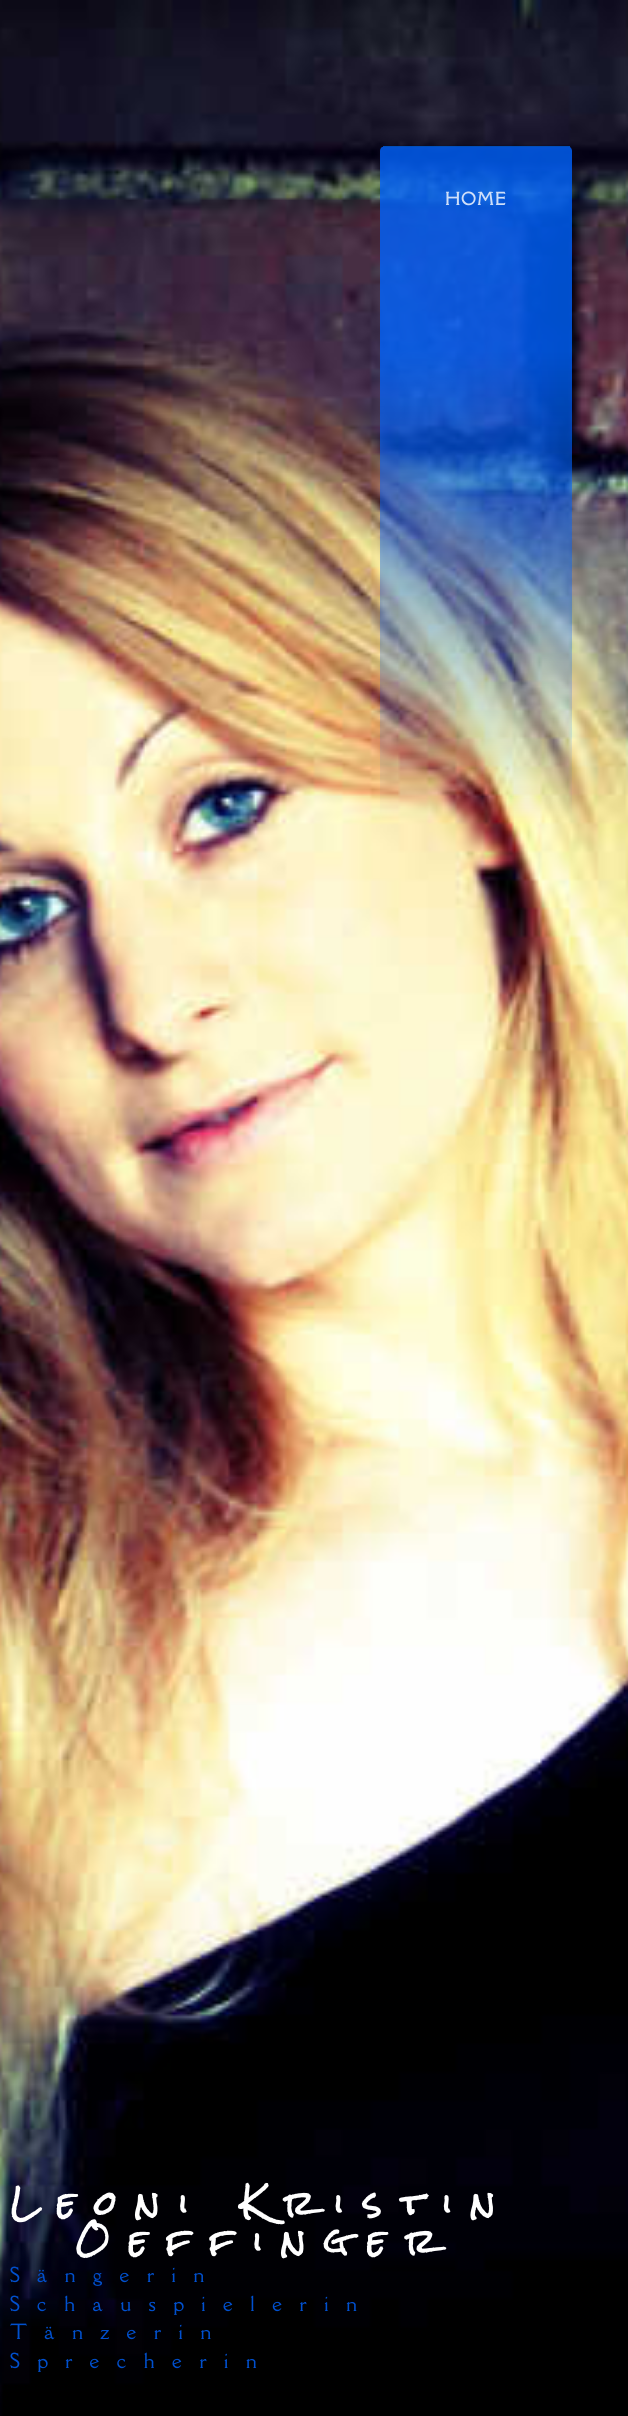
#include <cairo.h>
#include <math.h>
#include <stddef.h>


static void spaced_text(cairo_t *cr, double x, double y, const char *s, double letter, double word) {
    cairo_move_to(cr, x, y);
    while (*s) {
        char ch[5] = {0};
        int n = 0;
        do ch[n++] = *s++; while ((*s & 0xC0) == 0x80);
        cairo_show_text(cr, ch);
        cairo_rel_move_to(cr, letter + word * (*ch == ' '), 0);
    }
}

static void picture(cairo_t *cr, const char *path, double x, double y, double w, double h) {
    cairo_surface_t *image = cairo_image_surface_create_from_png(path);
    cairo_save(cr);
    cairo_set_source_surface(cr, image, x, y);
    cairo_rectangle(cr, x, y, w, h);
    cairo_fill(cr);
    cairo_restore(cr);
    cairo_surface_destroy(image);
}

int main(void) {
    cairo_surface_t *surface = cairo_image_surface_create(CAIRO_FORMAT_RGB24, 628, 2416);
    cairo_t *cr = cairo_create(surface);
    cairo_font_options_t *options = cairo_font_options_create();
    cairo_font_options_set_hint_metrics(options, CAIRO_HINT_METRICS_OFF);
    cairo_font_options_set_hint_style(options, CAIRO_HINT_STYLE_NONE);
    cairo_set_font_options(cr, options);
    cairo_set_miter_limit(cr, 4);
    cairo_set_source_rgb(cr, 1, 1, 1);
    cairo_paint(cr);
    picture(cr, "img1.png", 0, 0, 628, 2416);
    cairo_set_source_rgba(cr, 0, 0.376, 0.867, 0.8);
    cairo_rectangle(cr, 383, 146, 187, 1);
    cairo_fill(cr);
    cairo_select_font_face(cr, "Della Respira", CAIRO_FONT_SLANT_NORMAL, CAIRO_FONT_WEIGHT_BOLD);
    cairo_set_font_size(cr, 16);
    cairo_set_source_rgb(cr, 0.812, 0.875, 0.973);
    spaced_text(cr, 445, 205, "HOME", 1, 0);
    cairo_select_font_face(cr, "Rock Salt", CAIRO_FONT_SLANT_NORMAL, CAIRO_FONT_WEIGHT_BOLD);
    cairo_set_font_size(cr, 32);
    cairo_set_source_rgb(cr, 1, 1, 1);
    spaced_text(cr, 10, 2216, "Leoni Kristin", 19.25, 0);
    spaced_text(cr, 75, 2254, "Oeffinger", 19.25, 0);
    cairo_select_font_face(cr, "Della Respira", CAIRO_FONT_SLANT_NORMAL, CAIRO_FONT_WEIGHT_NORMAL);
    cairo_set_font_size(cr, 19.25);
    cairo_set_source_rgb(cr, 0, 0.314, 0.812);
    spaced_text(cr, 10, 2282, "Sängerin", 17.25, 0);
    spaced_text(cr, 10, 2311, "Schauspielerin", 17.25, 0);
    spaced_text(cr, 10, 2339, "Tänzerin", 17.25, 0);
    spaced_text(cr, 10, 2368, "Sprecherin", 17.25, 0);
    cairo_surface_write_to_png(surface, "page.png");
    cairo_font_options_destroy(options);
    cairo_destroy(cr);
    cairo_surface_destroy(surface);
    return 0;
}
